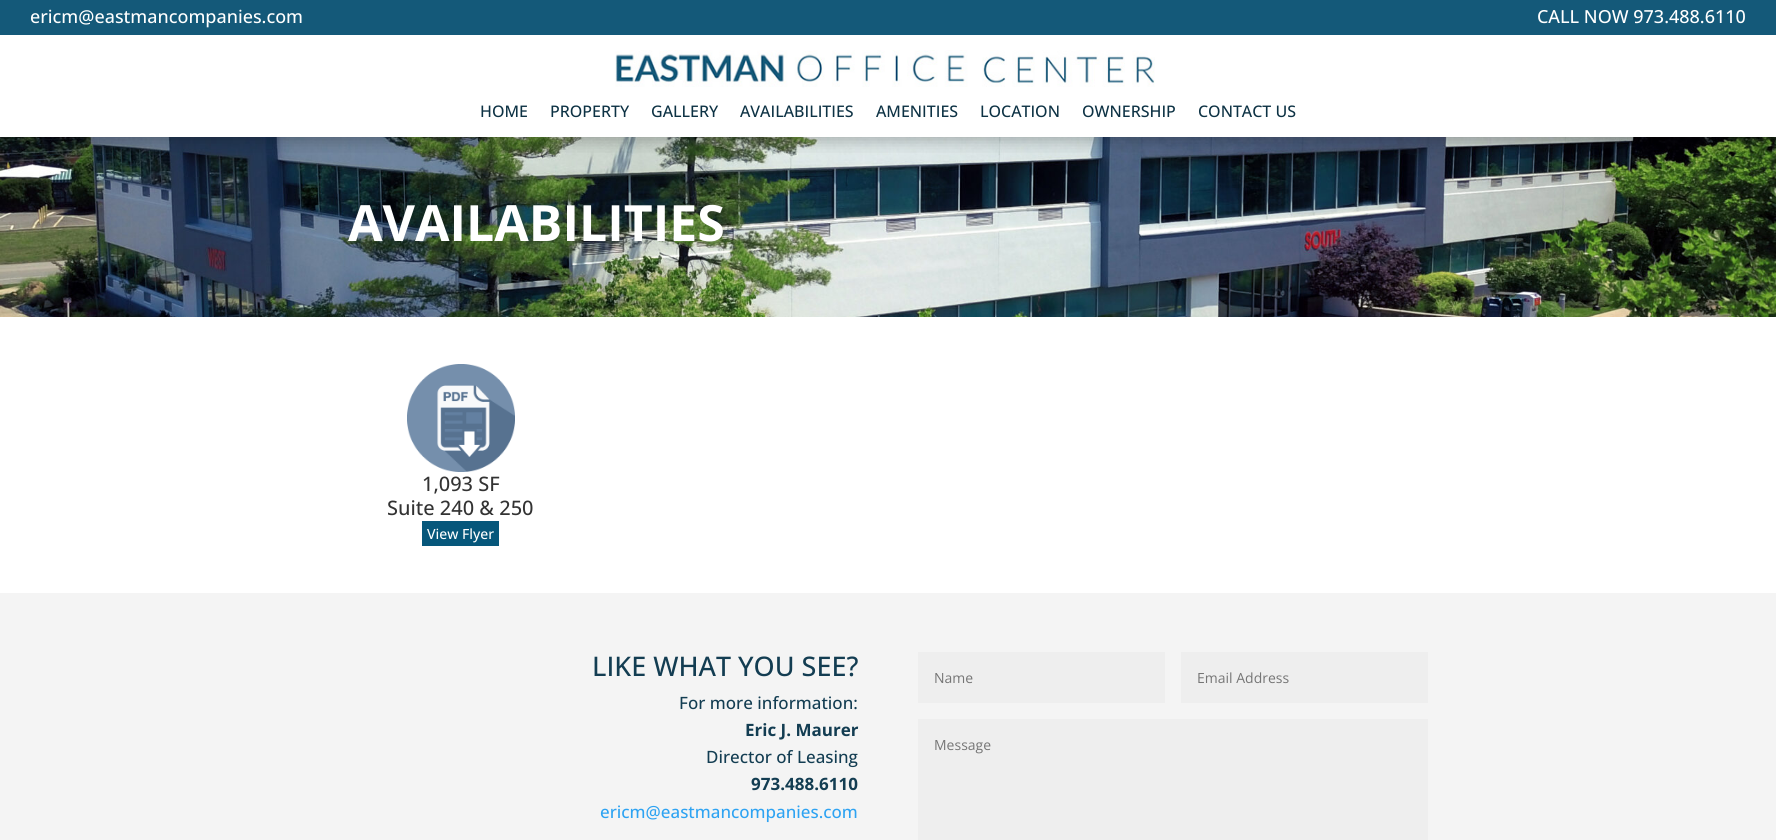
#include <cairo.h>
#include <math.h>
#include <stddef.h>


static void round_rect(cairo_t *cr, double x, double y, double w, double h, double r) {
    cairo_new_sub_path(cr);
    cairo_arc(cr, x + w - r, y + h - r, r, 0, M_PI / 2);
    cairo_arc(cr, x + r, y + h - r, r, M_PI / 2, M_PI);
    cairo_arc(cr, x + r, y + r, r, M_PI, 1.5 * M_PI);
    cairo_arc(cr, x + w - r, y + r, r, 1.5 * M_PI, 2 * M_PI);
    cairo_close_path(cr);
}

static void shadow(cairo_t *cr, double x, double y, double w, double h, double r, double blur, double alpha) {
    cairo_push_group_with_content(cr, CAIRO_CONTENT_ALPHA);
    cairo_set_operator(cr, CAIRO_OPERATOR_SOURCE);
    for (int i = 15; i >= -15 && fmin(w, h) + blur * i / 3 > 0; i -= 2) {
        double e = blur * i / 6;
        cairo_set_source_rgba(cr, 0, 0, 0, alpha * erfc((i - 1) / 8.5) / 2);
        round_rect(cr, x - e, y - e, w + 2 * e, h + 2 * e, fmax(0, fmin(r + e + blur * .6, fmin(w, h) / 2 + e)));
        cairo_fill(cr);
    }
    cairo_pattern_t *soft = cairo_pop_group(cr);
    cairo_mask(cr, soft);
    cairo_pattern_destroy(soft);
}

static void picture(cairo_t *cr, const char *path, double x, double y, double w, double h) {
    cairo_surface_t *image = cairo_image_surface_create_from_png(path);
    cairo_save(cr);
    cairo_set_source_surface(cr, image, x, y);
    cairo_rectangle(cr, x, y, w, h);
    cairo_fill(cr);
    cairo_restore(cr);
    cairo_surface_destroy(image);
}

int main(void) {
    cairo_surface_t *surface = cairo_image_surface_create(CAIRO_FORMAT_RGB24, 1776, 840);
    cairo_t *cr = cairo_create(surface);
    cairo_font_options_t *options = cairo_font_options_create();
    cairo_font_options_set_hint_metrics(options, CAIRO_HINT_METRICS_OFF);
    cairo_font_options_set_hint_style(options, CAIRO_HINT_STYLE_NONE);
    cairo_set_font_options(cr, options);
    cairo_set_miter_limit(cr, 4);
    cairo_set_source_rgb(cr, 1, 1, 1);
    cairo_paint(cr);
    picture(cr, "img2.png", 0, 137, 1776, 180);
    cairo_save(cr);
    cairo_rectangle(cr, 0, 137, 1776, 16);
    cairo_clip(cr);
    cairo_set_source_rgb(cr, 0, 0, 0);
    shadow(cr, 0, 2, 1776, 137, 0, 9, 0.3);
    cairo_restore(cr);
    cairo_set_source_rgb(cr, 0.082, 0.349, 0.475);
    cairo_rectangle(cr, 0, 0, 1776, 35);
    cairo_fill(cr);
    cairo_select_font_face(cr, "Open Sans Medium", CAIRO_FONT_SLANT_NORMAL, CAIRO_FONT_WEIGHT_NORMAL);
    cairo_set_font_size(cr, 18);
    cairo_set_source_rgb(cr, 1, 1, 1);
    cairo_move_to(cr, 30, 23);
    cairo_show_text(cr, "ericm@eastmancompanies.com");
    cairo_move_to(cr, 1537, 23);
    cairo_show_text(cr, "CALL NOW 973.488.6110");
    picture(cr, "img1.png", 615, 50, 540, 37);
    cairo_set_font_size(cr, 16);
    cairo_set_source_rgb(cr, 0.051, 0.196, 0.267);
    cairo_move_to(cr, 480, 117);
    cairo_show_text(cr, "HOME");
    cairo_move_to(cr, 550, 117);
    cairo_show_text(cr, "PROPERTY");
    cairo_move_to(cr, 651, 117);
    cairo_show_text(cr, "GALLERY");
    cairo_move_to(cr, 740, 117);
    cairo_show_text(cr, "AVAILABILITIES");
    cairo_move_to(cr, 876, 117);
    cairo_show_text(cr, "AMENITIES");
    cairo_move_to(cr, 980, 117);
    cairo_show_text(cr, "LOCATION");
    cairo_move_to(cr, 1082, 117);
    cairo_show_text(cr, "OWNERSHIP");
    cairo_move_to(cr, 1198, 117);
    cairo_show_text(cr, "CONTACT US");
    cairo_select_font_face(cr, "Open Sans", CAIRO_FONT_SLANT_NORMAL, CAIRO_FONT_WEIGHT_BOLD);
    cairo_set_font_size(cr, 50);
    cairo_set_source_rgb(cr, 1, 1, 1);
    cairo_move_to(cr, 348, 241);
    cairo_show_text(cr, "AVAILABILITIES");
    picture(cr, "img3.png", 407, 364, 108, 108);
    cairo_select_font_face(cr, "Open Sans Medium", CAIRO_FONT_SLANT_NORMAL, CAIRO_FONT_WEIGHT_NORMAL);
    cairo_set_font_size(cr, 20);
    cairo_set_source_rgb(cr, 0.2, 0.2, 0.2);
    cairo_move_to(cr, 422, 491);
    cairo_show_text(cr, "1,093 SF");
    cairo_move_to(cr, 387, 515);
    cairo_show_text(cr, "Suite 240 & 250");
    cairo_set_source_rgb(cr, 0.027, 0.341, 0.482);
    cairo_rectangle(cr, 422, 521, 77, 25);
    cairo_fill(cr);
    cairo_set_font_size(cr, 14);
    cairo_set_source_rgb(cr, 1, 1, 1);
    cairo_move_to(cr, 427, 539);
    cairo_show_text(cr, "View Flyer");
    cairo_set_source_rgb(cr, 0.957, 0.957, 0.957);
    cairo_rectangle(cr, 0, 593, 1776, 247);
    cairo_fill(cr);
    cairo_set_font_size(cr, 27);
    cairo_set_source_rgb(cr, 0.075, 0.239, 0.322);
    cairo_move_to(cr, 592, 676);
    cairo_show_text(cr, "LIKE WHAT YOU SEE?");
    cairo_set_font_size(cr, 17);
    cairo_move_to(cr, 679, 709);
    cairo_show_text(cr, "For more information:");
    cairo_select_font_face(cr, "Open Sans", CAIRO_FONT_SLANT_NORMAL, CAIRO_FONT_WEIGHT_BOLD);
    cairo_move_to(cr, 745, 736);
    cairo_show_text(cr, "Eric J. Maurer");
    cairo_select_font_face(cr, "Open Sans Medium", CAIRO_FONT_SLANT_NORMAL, CAIRO_FONT_WEIGHT_NORMAL);
    cairo_move_to(cr, 706, 763);
    cairo_show_text(cr, "Director of Leasing");
    cairo_select_font_face(cr, "Open Sans", CAIRO_FONT_SLANT_NORMAL, CAIRO_FONT_WEIGHT_BOLD);
    cairo_move_to(cr, 751, 790);
    cairo_show_text(cr, "973.488.6110");
    cairo_select_font_face(cr, "Open Sans Medium", CAIRO_FONT_SLANT_NORMAL, CAIRO_FONT_WEIGHT_NORMAL);
    cairo_set_source_rgb(cr, 0.18, 0.639, 0.949);
    cairo_move_to(cr, 600, 818);
    cairo_show_text(cr, "ericm@eastmancompanies.com");
    cairo_set_source_rgb(cr, 0.933, 0.933, 0.933);
    cairo_rectangle(cr, 918, 652, 247, 51);
    cairo_fill(cr);
    cairo_select_font_face(cr, "Open Sans", CAIRO_FONT_SLANT_NORMAL, CAIRO_FONT_WEIGHT_NORMAL);
    cairo_set_font_size(cr, 14);
    cairo_set_source_rgb(cr, 0.459, 0.459, 0.459);
    cairo_move_to(cr, 934, 683);
    cairo_show_text(cr, "Name");
    cairo_set_source_rgb(cr, 0.933, 0.933, 0.933);
    cairo_rectangle(cr, 1181, 652, 247, 51);
    cairo_fill(cr);
    cairo_set_source_rgb(cr, 0.459, 0.459, 0.459);
    cairo_move_to(cr, 1197, 683);
    cairo_show_text(cr, "Email Address");
    cairo_set_source_rgb(cr, 0.933, 0.933, 0.933);
    cairo_rectangle(cr, 918, 719, 510, 121);
    cairo_fill(cr);
    cairo_set_source_rgb(cr, 0.459, 0.459, 0.459);
    cairo_move_to(cr, 934, 750);
    cairo_show_text(cr, "Message");
    cairo_surface_write_to_png(surface, "page.png");
    cairo_font_options_destroy(options);
    cairo_destroy(cr);
    cairo_surface_destroy(surface);
    return 0;
}
